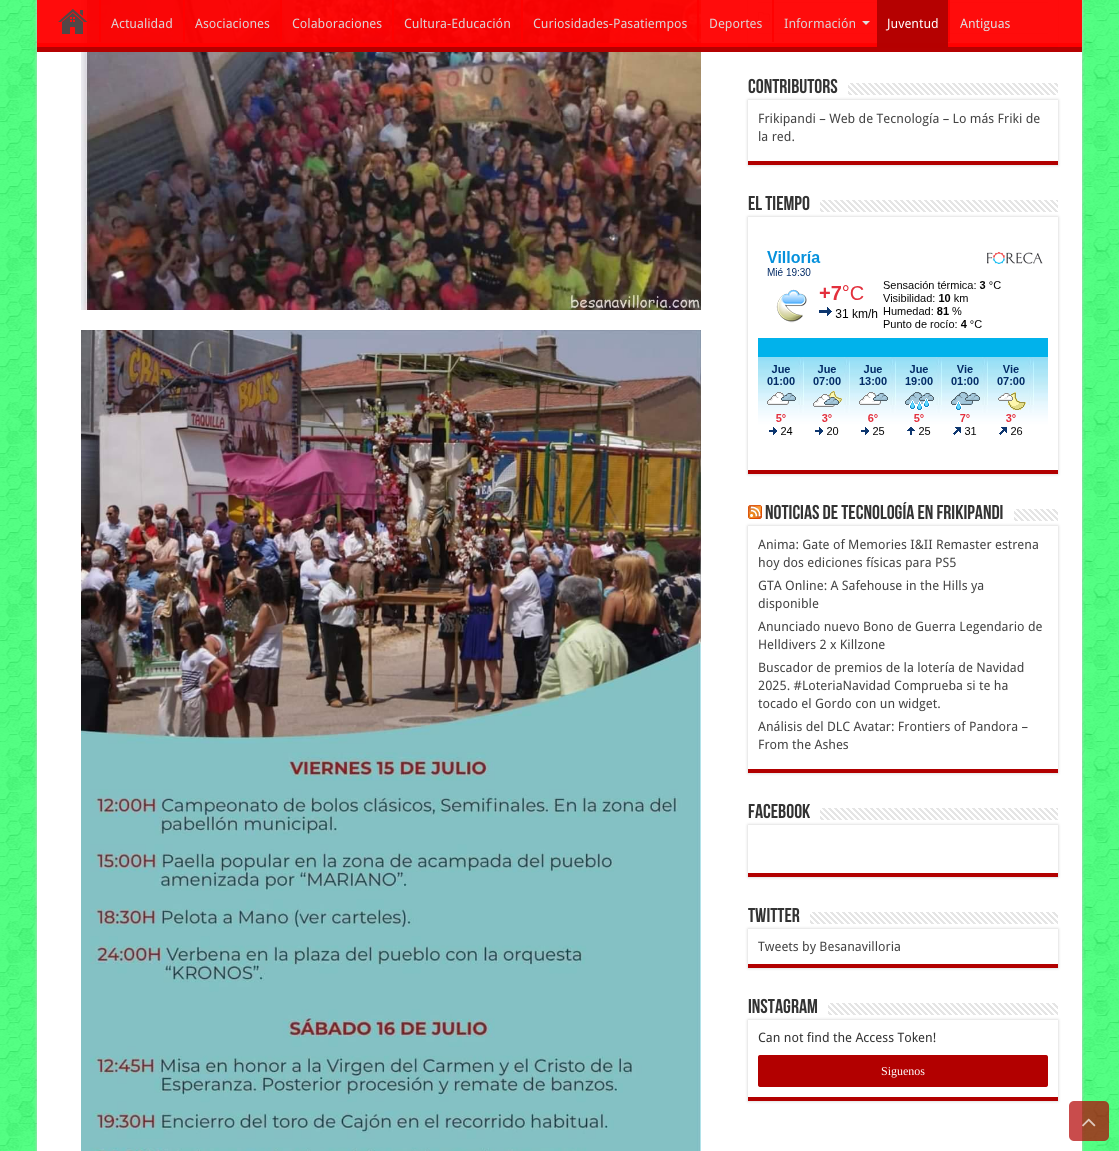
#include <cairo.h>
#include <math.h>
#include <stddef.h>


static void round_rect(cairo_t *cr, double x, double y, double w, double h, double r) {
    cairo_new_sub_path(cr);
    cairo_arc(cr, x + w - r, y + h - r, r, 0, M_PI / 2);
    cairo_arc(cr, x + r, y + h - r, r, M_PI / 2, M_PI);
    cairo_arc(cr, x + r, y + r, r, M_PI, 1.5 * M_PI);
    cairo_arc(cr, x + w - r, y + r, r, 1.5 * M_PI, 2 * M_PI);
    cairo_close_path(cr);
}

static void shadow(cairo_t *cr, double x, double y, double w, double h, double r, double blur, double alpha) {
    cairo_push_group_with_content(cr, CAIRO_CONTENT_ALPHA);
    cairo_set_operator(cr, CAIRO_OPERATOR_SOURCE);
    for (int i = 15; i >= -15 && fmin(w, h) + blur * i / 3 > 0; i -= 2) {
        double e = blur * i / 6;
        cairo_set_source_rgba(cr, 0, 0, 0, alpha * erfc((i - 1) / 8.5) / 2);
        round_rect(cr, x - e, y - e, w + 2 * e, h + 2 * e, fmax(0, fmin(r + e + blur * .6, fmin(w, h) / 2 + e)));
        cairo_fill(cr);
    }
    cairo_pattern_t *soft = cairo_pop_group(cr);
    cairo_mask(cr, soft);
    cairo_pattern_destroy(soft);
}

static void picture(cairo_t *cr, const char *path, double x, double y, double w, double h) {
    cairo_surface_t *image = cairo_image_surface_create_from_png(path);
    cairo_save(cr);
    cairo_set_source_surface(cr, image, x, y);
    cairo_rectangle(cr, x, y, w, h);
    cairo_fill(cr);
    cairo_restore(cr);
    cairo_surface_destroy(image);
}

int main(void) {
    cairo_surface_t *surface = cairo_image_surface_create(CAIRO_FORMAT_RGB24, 1119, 1151);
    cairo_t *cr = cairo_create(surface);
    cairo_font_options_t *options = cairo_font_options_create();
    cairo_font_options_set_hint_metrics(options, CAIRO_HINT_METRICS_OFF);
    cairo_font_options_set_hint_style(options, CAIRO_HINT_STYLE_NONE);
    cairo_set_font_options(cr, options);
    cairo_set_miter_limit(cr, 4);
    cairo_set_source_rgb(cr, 0, 1, 0.282);
    cairo_paint(cr);
    picture(cr, "img1.png", 0, 0, 1119, 1151);
    cairo_set_source_rgb(cr, 0.792, 0.792, 0.792);
    shadow(cr, 37, -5, 1045, 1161, 0, 1.5, 1);
    cairo_set_source_rgb(cr, 1, 1, 1);
    cairo_rectangle(cr, 37, 0, 1045, 1151);
    cairo_fill(cr);
    picture(cr, "img3.png", 81, 0, 620, 310);
    cairo_save(cr);
    cairo_set_fill_rule(cr, CAIRO_FILL_RULE_EVEN_ODD);
    cairo_new_path(cr);
    cairo_move_to(cr, 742, 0);
    cairo_line_to(cr, 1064, 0);
    cairo_line_to(cr, 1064, 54);
    cairo_line_to(cr, 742, 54);
    cairo_close_path(cr);
    cairo_move_to(cr, 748, -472);
    cairo_line_to(cr, 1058, -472);
    cairo_line_to(cr, 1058, 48);
    cairo_line_to(cr, 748, 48);
    cairo_close_path(cr);
    cairo_clip(cr);
    cairo_set_source_rgb(cr, 0.792, 0.792, 0.792);
    shadow(cr, 748, -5, 310, 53, 0, 1.5, 1);
    cairo_restore(cr);
    cairo_set_source_rgb(cr, 0.698, 0, 0);
    cairo_rectangle(cr, 748, 44, 310, 4);
    cairo_fill(cr);
    cairo_set_source_rgb(cr, 0.949, 0.949, 0.949);
    cairo_rectangle(cr, 758, 2, 290, 1);
    cairo_fill(cr);
    cairo_rectangle(cr, 758, 33, 290, 1);
    cairo_fill(cr);
    picture(cr, "img5.png", 758, 11, 12, 11);
    cairo_set_source_rgba(cr, 1, 0, 0, 0.95);
    cairo_rectangle(cr, 37, 0, 1045, 52);
    cairo_fill(cr);
    cairo_save(cr);
    cairo_rectangle(cr, 37, 0, 1045, 47);
    cairo_clip(cr);
    cairo_set_fill_rule(cr, CAIRO_FILL_RULE_EVEN_ODD);
    cairo_new_path(cr);
    cairo_move_to(cr, -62, -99);
    cairo_line_to(cr, 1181, -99);
    cairo_line_to(cr, 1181, 146);
    cairo_line_to(cr, -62, 146);
    cairo_close_path(cr);
    cairo_move_to(cr, 36, -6);
    cairo_line_to(cr, 1082, -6);
    cairo_line_to(cr, 1082, 34);
    cairo_curve_to(cr, 1082, 35, 1083, 43, 1081, 43);
    cairo_line_to(cr, 36, 43);
    cairo_line_to(cr, 35, 42);
    cairo_line_to(cr, 35, -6);
    cairo_close_path(cr);
    cairo_fill(cr);
    cairo_restore(cr);
    cairo_set_source_rgba(cr, 0.698, 0, 0, 0.95);
    cairo_rectangle(cr, 37, 47, 1045, 5);
    cairo_fill(cr);
    picture(cr, "img2.png", 58, 9, 30, 25);
    cairo_set_source_rgb(cr, 1, 0, 0);
    cairo_rectangle(cr, 99, 0, 2, 42);
    cairo_fill(cr);
    cairo_select_font_face(cr, "Droid Sans", CAIRO_FONT_SLANT_NORMAL, CAIRO_FONT_WEIGHT_NORMAL);
    cairo_set_font_size(cr, 13);
    cairo_set_source_rgb(cr, 0.871, 0.824, 0.824);
    cairo_move_to(cr, 111, 28);
    cairo_show_text(cr, "Actualidad");
    cairo_set_source_rgba(cr, 1, 0, 0, 0.95);
    cairo_rectangle(cr, 183, 0, 1, 42);
    cairo_fill(cr);
    cairo_rectangle(cr, 184, 0, 1, 42);
    cairo_fill(cr);
    cairo_set_source_rgb(cr, 0.871, 0.824, 0.824);
    cairo_move_to(cr, 195, 28);
    cairo_show_text(cr, "Asociaciones");
    cairo_set_source_rgba(cr, 1, 0, 0, 0.95);
    cairo_rectangle(cr, 280, 0, 1, 42);
    cairo_fill(cr);
    cairo_rectangle(cr, 281, 0, 1, 42);
    cairo_fill(cr);
    cairo_set_source_rgb(cr, 0.871, 0.824, 0.824);
    cairo_move_to(cr, 292, 28);
    cairo_show_text(cr, "Colaboraciones");
    cairo_set_source_rgba(cr, 1, 0, 0, 0.95);
    cairo_rectangle(cr, 392, 0, 1, 42);
    cairo_fill(cr);
    cairo_rectangle(cr, 393, 0, 1, 42);
    cairo_fill(cr);
    cairo_set_source_rgb(cr, 0.871, 0.824, 0.824);
    cairo_move_to(cr, 404, 28);
    cairo_show_text(cr, "Cultura-Educación");
    cairo_set_source_rgba(cr, 1, 0, 0, 0.95);
    cairo_rectangle(cr, 521, 0, 1, 42);
    cairo_fill(cr);
    cairo_rectangle(cr, 522, 0, 1, 42);
    cairo_fill(cr);
    cairo_set_source_rgb(cr, 0.871, 0.824, 0.824);
    cairo_move_to(cr, 533, 28);
    cairo_show_text(cr, "Curiosidades-Pasatiempos");
    cairo_set_source_rgba(cr, 1, 0, 0, 0.95);
    cairo_rectangle(cr, 697, 0, 1, 42);
    cairo_fill(cr);
    cairo_rectangle(cr, 698, 0, 1, 42);
    cairo_fill(cr);
    cairo_set_source_rgb(cr, 0.871, 0.824, 0.824);
    cairo_move_to(cr, 709, 28);
    cairo_show_text(cr, "Deportes");
    cairo_set_source_rgb(cr, 1, 0.004, 0.004);
    cairo_rectangle(cr, 772, 0, 2, 42);
    cairo_fill(cr);
    cairo_set_source_rgb(cr, 0.871, 0.824, 0.824);
    cairo_move_to(cr, 784, 28);
    cairo_show_text(cr, "Información");
    cairo_set_source_rgb(cr, 0.875, 0.875, 0.875);
    cairo_new_path(cr);
    cairo_move_to(cr, 862, 21);
    cairo_line_to(cr, 870, 21);
    cairo_line_to(cr, 866, 25);
    cairo_close_path(cr);
    cairo_fill(cr);
    cairo_set_source_rgba(cr, 0.698, 0, 0, 0.95);
    cairo_rectangle(cr, 877, 0, 71, 47);
    cairo_fill(cr);
    cairo_set_source_rgb(cr, 1, 1, 1);
    cairo_move_to(cr, 887, 28);
    cairo_show_text(cr, "Juventud");
    cairo_set_source_rgb(cr, 1, 0.004, 0.004);
    cairo_rectangle(cr, 948, 0, 2, 42);
    cairo_fill(cr);
    cairo_set_source_rgb(cr, 0.875, 0.875, 0.875);
    cairo_move_to(cr, 960, 28);
    cairo_show_text(cr, "Antiguas");
    picture(cr, "img4.png", 81, 330, 620, 821);
    cairo_select_font_face(cr, "Bebas Neue", CAIRO_FONT_SLANT_NORMAL, CAIRO_FONT_WEIGHT_BOLD);
    cairo_set_font_size(cr, 20);
    cairo_set_source_rgb(cr, 0.2, 0.2, 0.2);
    cairo_move_to(cr, 748, 93);
    cairo_show_text(cr, "Contributors");
    cairo_save(cr);
    cairo_set_fill_rule(cr, CAIRO_FILL_RULE_EVEN_ODD);
    cairo_new_path(cr);
    cairo_move_to(cr, 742, 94);
    cairo_line_to(cr, 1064, 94);
    cairo_line_to(cr, 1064, 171);
    cairo_line_to(cr, 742, 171);
    cairo_close_path(cr);
    cairo_move_to(cr, 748, 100);
    cairo_line_to(cr, 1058, 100);
    cairo_line_to(cr, 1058, 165);
    cairo_line_to(cr, 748, 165);
    cairo_close_path(cr);
    cairo_clip(cr);
    cairo_set_source_rgb(cr, 0.792, 0.792, 0.792);
    shadow(cr, 748, 100, 310, 65, 0, 1.5, 1);
    cairo_restore(cr);
    picture(cr, "img6.png", 848, 83, 210, 12);
    cairo_set_source_rgb(cr, 0.698, 0, 0);
    cairo_rectangle(cr, 748, 161, 310, 4);
    cairo_fill(cr);
    cairo_select_font_face(cr, "Droid Sans", CAIRO_FONT_SLANT_NORMAL, CAIRO_FONT_WEIGHT_NORMAL);
    cairo_set_font_size(cr, 13);
    cairo_set_source_rgb(cr, 0.267, 0.267, 0.267);
    cairo_move_to(cr, 758, 123);
    cairo_show_text(cr, "Frikipandi – Web de Tecnología – Lo más Friki de");
    cairo_move_to(cr, 758, 141);
    cairo_show_text(cr, "la red.");
    cairo_select_font_face(cr, "Bebas Neue", CAIRO_FONT_SLANT_NORMAL, CAIRO_FONT_WEIGHT_BOLD);
    cairo_set_font_size(cr, 20);
    cairo_set_source_rgb(cr, 0.2, 0.2, 0.2);
    cairo_move_to(cr, 748, 210);
    cairo_show_text(cr, "El Tiempo");
    cairo_save(cr);
    cairo_set_fill_rule(cr, CAIRO_FILL_RULE_EVEN_ODD);
    cairo_new_path(cr);
    cairo_move_to(cr, 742, 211);
    cairo_line_to(cr, 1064, 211);
    cairo_line_to(cr, 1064, 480);
    cairo_line_to(cr, 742, 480);
    cairo_close_path(cr);
    cairo_move_to(cr, 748, 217);
    cairo_line_to(cr, 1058, 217);
    cairo_line_to(cr, 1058, 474);
    cairo_line_to(cr, 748, 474);
    cairo_close_path(cr);
    cairo_clip(cr);
    cairo_set_source_rgb(cr, 0.792, 0.792, 0.792);
    shadow(cr, 748, 217, 310, 257, 0, 1.5, 1);
    cairo_restore(cr);
    picture(cr, "img7.png", 820, 200, 238, 12);
    cairo_set_source_rgb(cr, 0.698, 0, 0);
    cairo_rectangle(cr, 748, 470, 310, 4);
    cairo_fill(cr);
    picture(cr, "img8.png", 758, 251, 290, 184);
    picture(cr, "img9.png", 748, 505, 14, 14);
    cairo_set_source_rgb(cr, 0.2, 0.2, 0.2);
    cairo_move_to(cr, 765, 519);
    cairo_show_text(cr, "Noticias de Tecnología en Frikipandi");
    cairo_save(cr);
    cairo_set_fill_rule(cr, CAIRO_FILL_RULE_EVEN_ODD);
    cairo_new_path(cr);
    cairo_move_to(cr, 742, 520);
    cairo_line_to(cr, 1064, 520);
    cairo_line_to(cr, 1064, 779);
    cairo_line_to(cr, 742, 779);
    cairo_close_path(cr);
    cairo_move_to(cr, 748, 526);
    cairo_line_to(cr, 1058, 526);
    cairo_line_to(cr, 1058, 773);
    cairo_line_to(cr, 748, 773);
    cairo_close_path(cr);
    cairo_clip(cr);
    cairo_set_source_rgb(cr, 0.792, 0.792, 0.792);
    shadow(cr, 748, 526, 310, 247, 0, 1.5, 1);
    cairo_restore(cr);
    picture(cr, "img10.png", 1014, 509, 44, 12);
    cairo_set_source_rgb(cr, 0.698, 0, 0);
    cairo_rectangle(cr, 748, 769, 310, 4);
    cairo_fill(cr);
    cairo_select_font_face(cr, "Droid Sans", CAIRO_FONT_SLANT_NORMAL, CAIRO_FONT_WEIGHT_NORMAL);
    cairo_set_font_size(cr, 13);
    cairo_set_source_rgb(cr, 0.267, 0.267, 0.267);
    cairo_move_to(cr, 758, 549);
    cairo_show_text(cr, "Anima: Gate of Memories I&II Remaster estrena");
    cairo_move_to(cr, 758, 567);
    cairo_show_text(cr, "hoy dos ediciones físicas para PS5");
    cairo_move_to(cr, 758, 590);
    cairo_show_text(cr, "GTA Online: A Safehouse in the Hills ya");
    cairo_move_to(cr, 758, 608);
    cairo_show_text(cr, "disponible");
    cairo_move_to(cr, 758, 631);
    cairo_show_text(cr, "Anunciado nuevo Bono de Guerra Legendario de");
    cairo_move_to(cr, 758, 649);
    cairo_show_text(cr, "Helldivers 2 x Killzone");
    cairo_move_to(cr, 758, 672);
    cairo_show_text(cr, "Buscador de premios de la lotería de Navidad");
    cairo_move_to(cr, 758, 690);
    cairo_show_text(cr, "2025. #LoteriaNavidad Comprueba si te ha");
    cairo_move_to(cr, 758, 708);
    cairo_show_text(cr, "tocado el Gordo con un widget.");
    cairo_move_to(cr, 758, 731);
    cairo_show_text(cr, "Análisis del DLC Avatar: Frontiers of Pandora –");
    cairo_move_to(cr, 758, 749);
    cairo_show_text(cr, "From the Ashes");
    cairo_select_font_face(cr, "Bebas Neue", CAIRO_FONT_SLANT_NORMAL, CAIRO_FONT_WEIGHT_BOLD);
    cairo_set_font_size(cr, 20);
    cairo_set_source_rgb(cr, 0.2, 0.2, 0.2);
    cairo_move_to(cr, 748, 818);
    cairo_show_text(cr, "Facebook");
    cairo_save(cr);
    cairo_set_fill_rule(cr, CAIRO_FILL_RULE_EVEN_ODD);
    cairo_new_path(cr);
    cairo_move_to(cr, 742, 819);
    cairo_line_to(cr, 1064, 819);
    cairo_line_to(cr, 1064, 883);
    cairo_line_to(cr, 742, 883);
    cairo_close_path(cr);
    cairo_move_to(cr, 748, 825);
    cairo_line_to(cr, 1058, 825);
    cairo_line_to(cr, 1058, 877);
    cairo_line_to(cr, 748, 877);
    cairo_close_path(cr);
    cairo_clip(cr);
    cairo_set_source_rgb(cr, 0.792, 0.792, 0.792);
    shadow(cr, 748, 825, 310, 52, 0, 1.5, 1);
    cairo_restore(cr);
    picture(cr, "img7.png", 820, 808, 238, 12);
    cairo_set_source_rgb(cr, 0.698, 0, 0);
    cairo_rectangle(cr, 748, 873, 310, 4);
    cairo_fill(cr);
    cairo_set_source_rgb(cr, 0.2, 0.2, 0.2);
    cairo_move_to(cr, 748, 922);
    cairo_show_text(cr, "Twitter");
    cairo_save(cr);
    cairo_set_fill_rule(cr, CAIRO_FILL_RULE_EVEN_ODD);
    cairo_new_path(cr);
    cairo_move_to(cr, 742, 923);
    cairo_line_to(cr, 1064, 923);
    cairo_line_to(cr, 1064, 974);
    cairo_line_to(cr, 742, 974);
    cairo_close_path(cr);
    cairo_move_to(cr, 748, 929);
    cairo_line_to(cr, 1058, 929);
    cairo_line_to(cr, 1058, 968);
    cairo_line_to(cr, 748, 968);
    cairo_close_path(cr);
    cairo_clip(cr);
    cairo_set_source_rgb(cr, 0.792, 0.792, 0.792);
    shadow(cr, 748, 929, 310, 39, 0, 1.5, 1);
    cairo_restore(cr);
    picture(cr, "img11.png", 810, 912, 248, 12);
    cairo_set_source_rgb(cr, 0.698, 0, 0);
    cairo_rectangle(cr, 748, 964, 310, 4);
    cairo_fill(cr);
    cairo_select_font_face(cr, "Droid Sans", CAIRO_FONT_SLANT_NORMAL, CAIRO_FONT_WEIGHT_NORMAL);
    cairo_set_font_size(cr, 13);
    cairo_set_source_rgb(cr, 0.267, 0.267, 0.267);
    cairo_move_to(cr, 758, 951);
    cairo_show_text(cr, "Tweets by Besanavilloria");
    cairo_select_font_face(cr, "Bebas Neue", CAIRO_FONT_SLANT_NORMAL, CAIRO_FONT_WEIGHT_BOLD);
    cairo_set_font_size(cr, 20);
    cairo_set_source_rgb(cr, 0.2, 0.2, 0.2);
    cairo_move_to(cr, 748, 1013);
    cairo_show_text(cr, "INSTAGRAM");
    cairo_save(cr);
    cairo_set_fill_rule(cr, CAIRO_FILL_RULE_EVEN_ODD);
    cairo_new_path(cr);
    cairo_move_to(cr, 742, 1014);
    cairo_line_to(cr, 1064, 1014);
    cairo_line_to(cr, 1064, 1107);
    cairo_line_to(cr, 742, 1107);
    cairo_close_path(cr);
    cairo_move_to(cr, 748, 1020);
    cairo_line_to(cr, 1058, 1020);
    cairo_line_to(cr, 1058, 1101);
    cairo_line_to(cr, 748, 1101);
    cairo_close_path(cr);
    cairo_clip(cr);
    cairo_set_source_rgb(cr, 0.792, 0.792, 0.792);
    shadow(cr, 748, 1020, 310, 81, 0, 1.5, 1);
    cairo_restore(cr);
    picture(cr, "img12.png", 828, 1003, 230, 12);
    cairo_set_source_rgb(cr, 0.698, 0, 0);
    cairo_rectangle(cr, 748, 1097, 310, 4);
    cairo_fill(cr);
    cairo_select_font_face(cr, "Droid Sans", CAIRO_FONT_SLANT_NORMAL, CAIRO_FONT_WEIGHT_NORMAL);
    cairo_set_font_size(cr, 13);
    cairo_set_source_rgb(cr, 0.2, 0.2, 0.2);
    cairo_move_to(cr, 758, 1042);
    cairo_show_text(cr, "Can not find the Access Token!");
    cairo_set_source_rgb(cr, 0.698, 0, 0);
    round_rect(cr, 758, 1055, 290, 32, 2);
    cairo_fill(cr);
    cairo_select_font_face(cr, "Liberation Serif", CAIRO_FONT_SLANT_NORMAL, CAIRO_FONT_WEIGHT_NORMAL);
    cairo_set_font_size(cr, 12);
    cairo_set_source_rgb(cr, 1, 1, 1);
    cairo_move_to(cr, 881, 1075);
    cairo_show_text(cr, "Siguenos");
    cairo_set_source_rgba(cr, 0.698, 0, 0, 0.7);
    round_rect(cr, 1069, 1101, 40, 40, 5);
    cairo_fill(cr);
    picture(cr, "img13.png", 1082, 1118, 14, 9);
    cairo_surface_write_to_png(surface, "page.png");
    cairo_font_options_destroy(options);
    cairo_destroy(cr);
    cairo_surface_destroy(surface);
    return 0;
}
